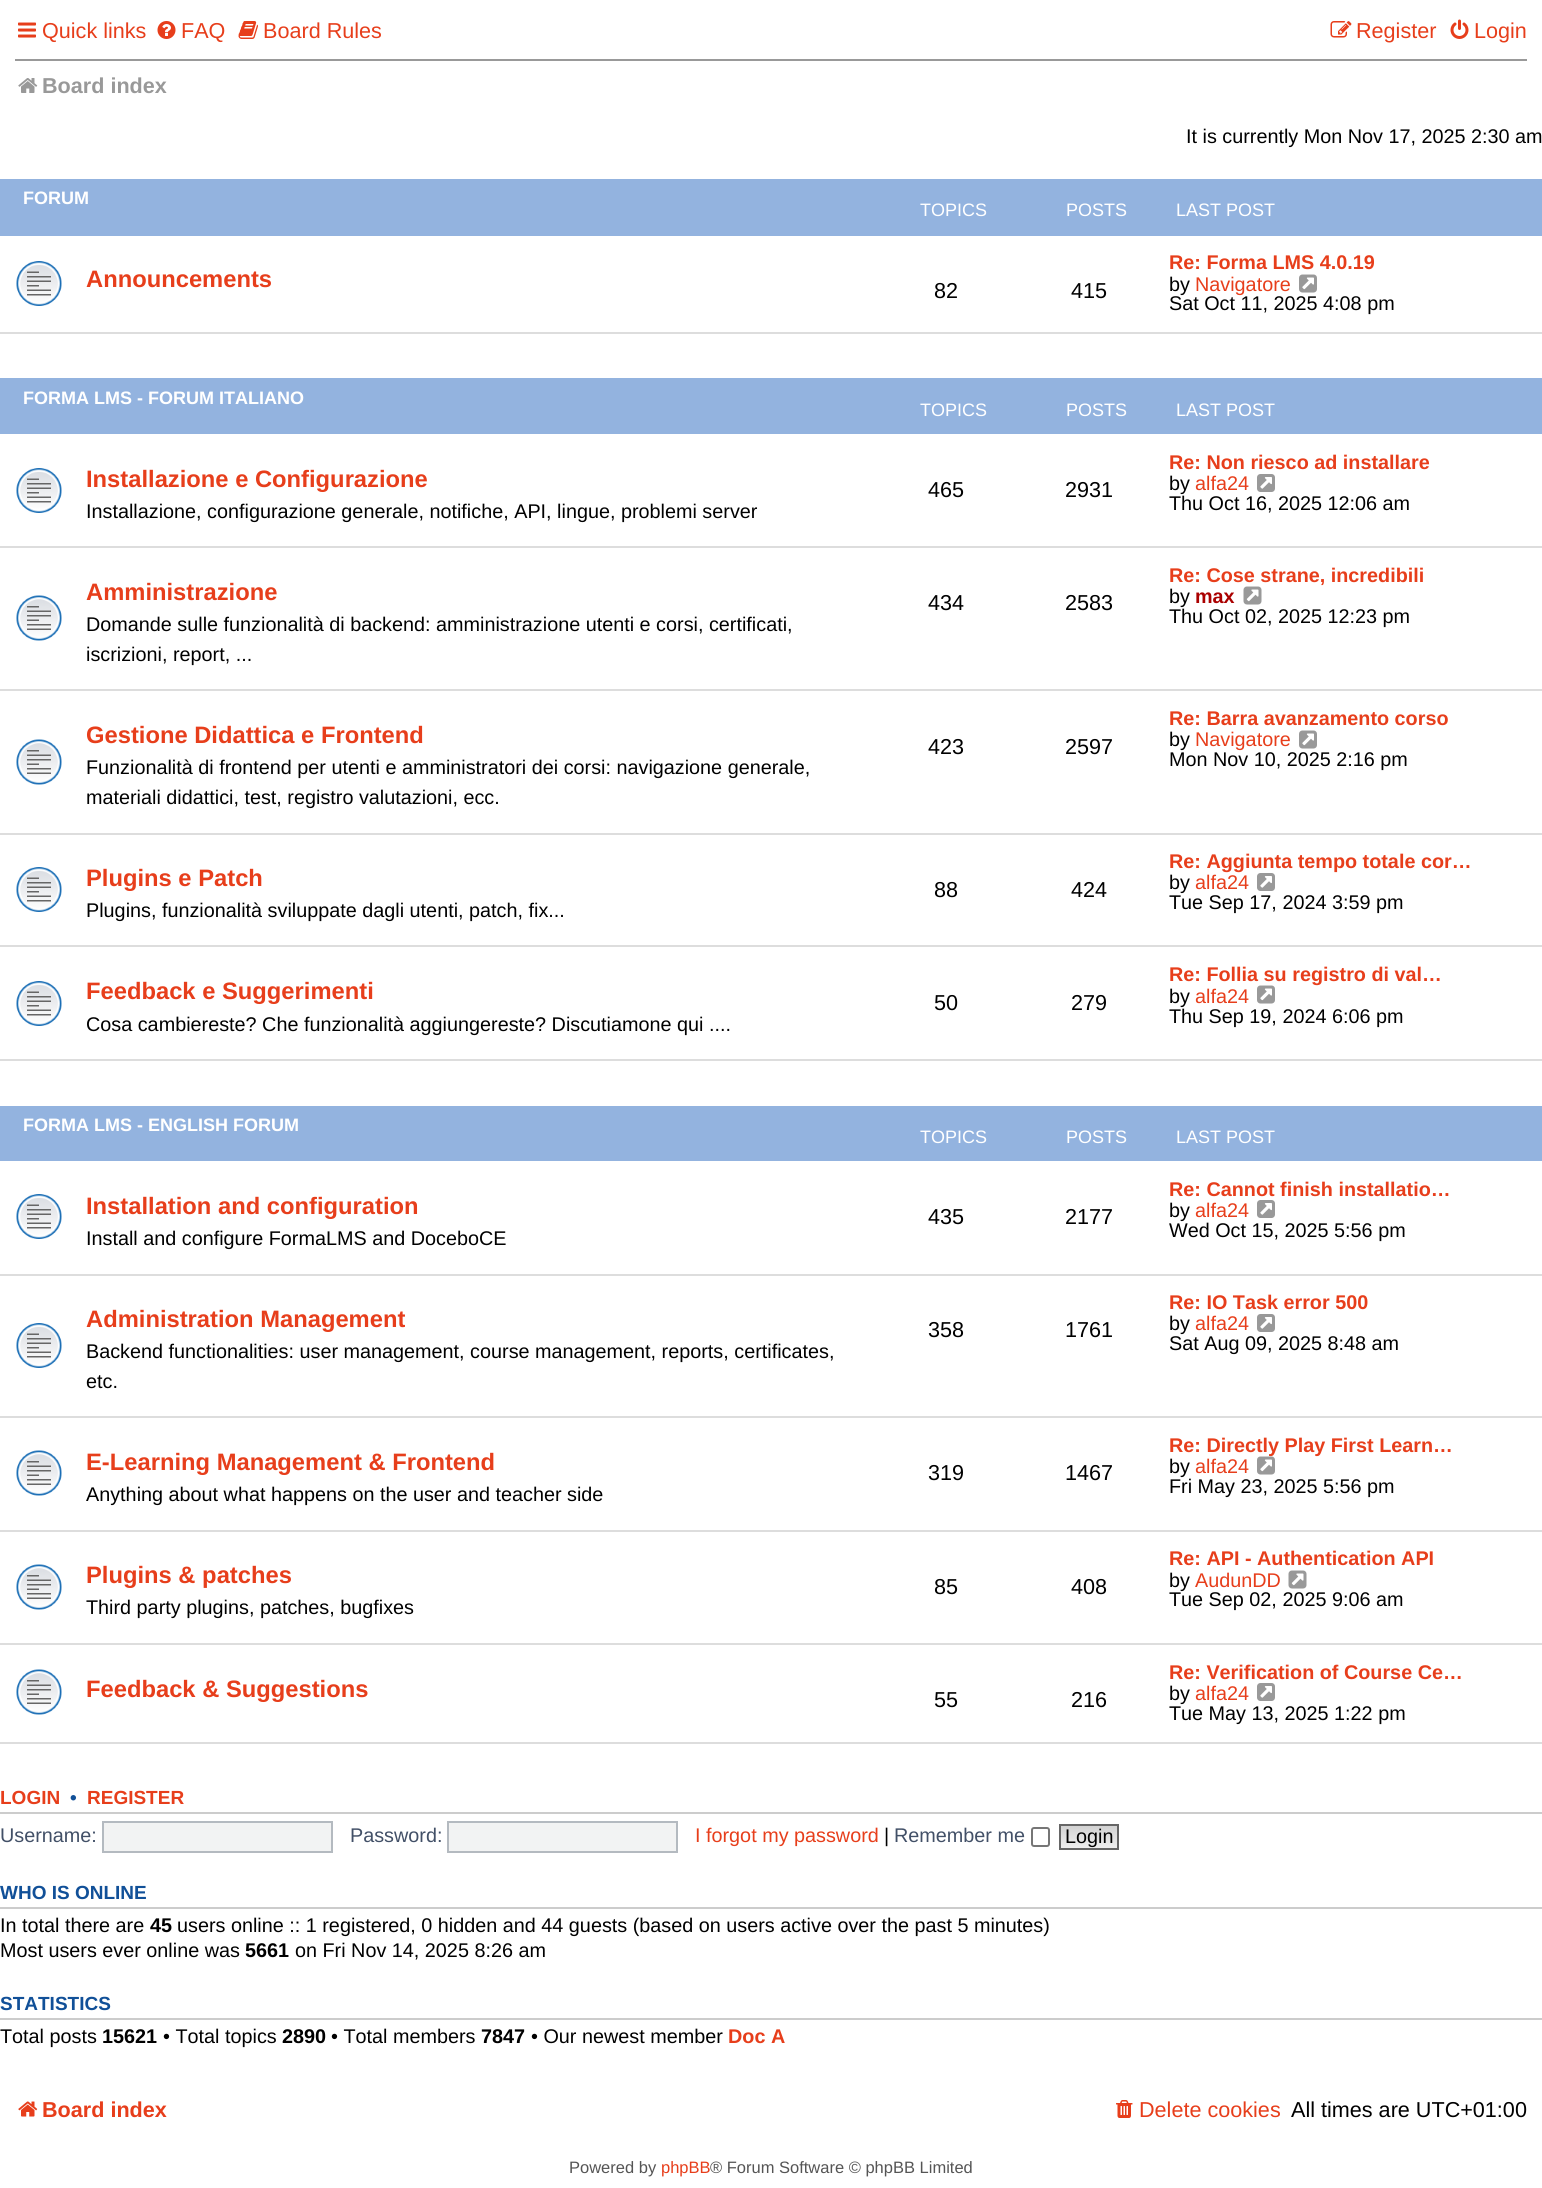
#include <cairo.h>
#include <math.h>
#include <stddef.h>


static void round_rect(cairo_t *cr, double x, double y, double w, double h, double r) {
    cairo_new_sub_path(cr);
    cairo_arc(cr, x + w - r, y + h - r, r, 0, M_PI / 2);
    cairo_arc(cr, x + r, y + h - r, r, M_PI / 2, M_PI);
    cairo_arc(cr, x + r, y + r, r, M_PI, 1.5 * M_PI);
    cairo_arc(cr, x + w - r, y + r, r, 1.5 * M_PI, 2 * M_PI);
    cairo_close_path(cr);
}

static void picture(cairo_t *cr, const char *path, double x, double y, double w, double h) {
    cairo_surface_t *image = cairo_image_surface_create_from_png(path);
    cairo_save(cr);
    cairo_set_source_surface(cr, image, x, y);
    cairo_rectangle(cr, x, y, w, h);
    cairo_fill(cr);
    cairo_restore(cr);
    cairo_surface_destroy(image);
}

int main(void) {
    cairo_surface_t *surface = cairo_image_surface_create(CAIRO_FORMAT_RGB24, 1542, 2188);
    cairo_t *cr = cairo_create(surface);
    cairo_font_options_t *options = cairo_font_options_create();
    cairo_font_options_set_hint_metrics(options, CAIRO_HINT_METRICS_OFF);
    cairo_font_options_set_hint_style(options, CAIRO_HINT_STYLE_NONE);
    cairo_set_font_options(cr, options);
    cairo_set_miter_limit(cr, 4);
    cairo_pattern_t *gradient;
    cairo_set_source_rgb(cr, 1, 1, 1);
    cairo_paint(cr);
    picture(cr, "img1.png", 18, 22, 18, 16);
    cairo_select_font_face(cr, "Liberation Sans", CAIRO_FONT_SLANT_NORMAL, CAIRO_FONT_WEIGHT_NORMAL);
    cairo_set_font_size(cr, 21.6);
    cairo_set_source_rgb(cr, 0.906, 0.243, 0.106);
    cairo_move_to(cr, 42, 38);
    cairo_show_text(cr, "Quick links");
    picture(cr, "img2.png", 157, 21, 19, 18);
    cairo_move_to(cr, 181, 38);
    cairo_show_text(cr, "FAQ");
    picture(cr, "img3.png", 238, 21, 20, 18);
    cairo_move_to(cr, 263, 38);
    cairo_show_text(cr, "Board Rules");
    picture(cr, "img4.png", 1330, 21, 22, 17);
    cairo_move_to(cr, 1356, 38);
    cairo_show_text(cr, "Register");
    picture(cr, "img5.png", 1450, 19, 19, 20);
    cairo_move_to(cr, 1474, 38);
    cairo_show_text(cr, "Login");
    cairo_set_source_rgb(cr, 0.6, 0.6, 0.6);
    cairo_rectangle(cr, 15, 59, 1512, 2);
    cairo_fill(cr);
    picture(cr, "img6.png", 18, 78, 20, 15);
    cairo_select_font_face(cr, "Liberation Sans", CAIRO_FONT_SLANT_NORMAL, CAIRO_FONT_WEIGHT_BOLD);
    cairo_move_to(cr, 42, 93);
    cairo_show_text(cr, "Board index");
    cairo_select_font_face(cr, "Liberation Sans", CAIRO_FONT_SLANT_NORMAL, CAIRO_FONT_WEIGHT_NORMAL);
    cairo_set_font_size(cr, 19.8);
    cairo_set_source_rgb(cr, 0, 0, 0);
    cairo_move_to(cr, 1186, 143);
    cairo_show_text(cr, "It is currently Mon Nov 17, 2025 2:30 am");
    cairo_set_source_rgb(cr, 0.576, 0.702, 0.875);
    cairo_rectangle(cr, 0, 179, 1542, 57);
    cairo_fill(cr);
    cairo_select_font_face(cr, "Liberation Sans", CAIRO_FONT_SLANT_NORMAL, CAIRO_FONT_WEIGHT_BOLD);
    cairo_set_font_size(cr, 18);
    cairo_set_source_rgb(cr, 1, 1, 1);
    cairo_move_to(cr, 23, 204);
    cairo_show_text(cr, "FORUM");
    cairo_select_font_face(cr, "Liberation Sans", CAIRO_FONT_SLANT_NORMAL, CAIRO_FONT_WEIGHT_NORMAL);
    cairo_move_to(cr, 920, 216);
    cairo_show_text(cr, "TOPICS");
    cairo_move_to(cr, 1066, 216);
    cairo_show_text(cr, "POSTS");
    cairo_move_to(cr, 1176, 216);
    cairo_show_text(cr, "LAST POST");
    cairo_set_source_rgb(cr, 0.867, 0.867, 0.867);
    cairo_rectangle(cr, 0, 332, 1542, 2);
    cairo_fill(cr);
    picture(cr, "img7.png", 16, 261, 46, 45);
    cairo_select_font_face(cr, "Liberation Sans", CAIRO_FONT_SLANT_NORMAL, CAIRO_FONT_WEIGHT_BOLD);
    cairo_set_font_size(cr, 23.75);
    cairo_set_source_rgb(cr, 0.906, 0.243, 0.106);
    cairo_move_to(cr, 86, 287);
    cairo_show_text(cr, "Announcements");
    cairo_set_font_size(cr, 19.8);
    cairo_move_to(cr, 1169, 269);
    cairo_show_text(cr, "Re: Forma LMS 4.0.19");
    cairo_select_font_face(cr, "Liberation Sans", CAIRO_FONT_SLANT_NORMAL, CAIRO_FONT_WEIGHT_NORMAL);
    cairo_set_source_rgb(cr, 0, 0, 0);
    cairo_move_to(cr, 1169, 291);
    cairo_show_text(cr, "by");
    cairo_set_source_rgb(cr, 0.906, 0.243, 0.106);
    cairo_move_to(cr, 1195, 291);
    cairo_show_text(cr, "Navigatore");
    picture(cr, "img8.png", 1299, 274, 18, 19);
    cairo_set_source_rgb(cr, 0, 0, 0);
    cairo_move_to(cr, 1169, 310);
    cairo_show_text(cr, "Sat Oct 11, 2025 4:08 pm");
    cairo_set_font_size(cr, 21.6);
    cairo_move_to(cr, 934, 298);
    cairo_show_text(cr, "82");
    cairo_move_to(cr, 1071, 298);
    cairo_show_text(cr, "415");
    cairo_set_source_rgb(cr, 0.576, 0.702, 0.875);
    cairo_rectangle(cr, 0, 378, 1542, 56);
    cairo_fill(cr);
    cairo_select_font_face(cr, "Liberation Sans", CAIRO_FONT_SLANT_NORMAL, CAIRO_FONT_WEIGHT_BOLD);
    cairo_set_font_size(cr, 18);
    cairo_set_source_rgb(cr, 1, 1, 1);
    cairo_move_to(cr, 23, 404);
    cairo_show_text(cr, "FORMA LMS - FORUM ITALIANO");
    cairo_select_font_face(cr, "Liberation Sans", CAIRO_FONT_SLANT_NORMAL, CAIRO_FONT_WEIGHT_NORMAL);
    cairo_move_to(cr, 920, 416);
    cairo_show_text(cr, "TOPICS");
    cairo_move_to(cr, 1066, 416);
    cairo_show_text(cr, "POSTS");
    cairo_move_to(cr, 1176, 416);
    cairo_show_text(cr, "LAST POST");
    cairo_set_source_rgb(cr, 0.867, 0.867, 0.867);
    cairo_rectangle(cr, 0, 546, 1542, 2);
    cairo_fill(cr);
    picture(cr, "img7.png", 16, 468, 46, 45);
    cairo_select_font_face(cr, "Liberation Sans", CAIRO_FONT_SLANT_NORMAL, CAIRO_FONT_WEIGHT_BOLD);
    cairo_set_font_size(cr, 23.75);
    cairo_set_source_rgb(cr, 0.906, 0.243, 0.106);
    cairo_move_to(cr, 86, 487);
    cairo_show_text(cr, "Installazione e Configurazione");
    cairo_select_font_face(cr, "Liberation Sans", CAIRO_FONT_SLANT_NORMAL, CAIRO_FONT_WEIGHT_NORMAL);
    cairo_set_font_size(cr, 19.8);
    cairo_set_source_rgb(cr, 0, 0, 0);
    cairo_move_to(cr, 86, 518);
    cairo_show_text(cr, "Installazione, configurazione generale, notifiche, API, lingue, problemi server");
    cairo_set_font_size(cr, 21.6);
    cairo_move_to(cr, 928, 497);
    cairo_show_text(cr, "465");
    cairo_move_to(cr, 1065, 497);
    cairo_show_text(cr, "2931");
    cairo_select_font_face(cr, "Liberation Sans", CAIRO_FONT_SLANT_NORMAL, CAIRO_FONT_WEIGHT_BOLD);
    cairo_set_font_size(cr, 19.8);
    cairo_set_source_rgb(cr, 0.906, 0.243, 0.106);
    cairo_move_to(cr, 1169, 469);
    cairo_show_text(cr, "Re: Non riesco ad installare");
    cairo_select_font_face(cr, "Liberation Sans", CAIRO_FONT_SLANT_NORMAL, CAIRO_FONT_WEIGHT_NORMAL);
    cairo_set_source_rgb(cr, 0, 0, 0);
    cairo_move_to(cr, 1169, 490);
    cairo_show_text(cr, "by");
    cairo_set_source_rgb(cr, 0.906, 0.243, 0.106);
    cairo_move_to(cr, 1195, 490);
    cairo_show_text(cr, "alfa24");
    picture(cr, "img9.png", 1257, 474, 18, 18);
    cairo_set_source_rgb(cr, 0, 0, 0);
    cairo_move_to(cr, 1169, 510);
    cairo_show_text(cr, "Thu Oct 16, 2025 12:06 am");
    cairo_set_source_rgb(cr, 0.867, 0.867, 0.867);
    cairo_rectangle(cr, 0, 689, 1542, 2);
    cairo_fill(cr);
    picture(cr, "img10.png", 16, 595, 46, 46);
    cairo_select_font_face(cr, "Liberation Sans", CAIRO_FONT_SLANT_NORMAL, CAIRO_FONT_WEIGHT_BOLD);
    cairo_set_font_size(cr, 23.75);
    cairo_set_source_rgb(cr, 0.906, 0.243, 0.106);
    cairo_move_to(cr, 86, 600);
    cairo_show_text(cr, "Amministrazione");
    cairo_select_font_face(cr, "Liberation Sans", CAIRO_FONT_SLANT_NORMAL, CAIRO_FONT_WEIGHT_NORMAL);
    cairo_set_font_size(cr, 19.8);
    cairo_set_source_rgb(cr, 0, 0, 0);
    cairo_move_to(cr, 86, 631);
    cairo_show_text(cr, "Domande sulle funzionalità di backend: amministrazione utenti e corsi, certificati,");
    cairo_move_to(cr, 86, 661);
    cairo_show_text(cr, "iscrizioni, report, ...");
    cairo_set_font_size(cr, 21.6);
    cairo_move_to(cr, 928, 610);
    cairo_show_text(cr, "434");
    cairo_move_to(cr, 1065, 610);
    cairo_show_text(cr, "2583");
    cairo_select_font_face(cr, "Liberation Sans", CAIRO_FONT_SLANT_NORMAL, CAIRO_FONT_WEIGHT_BOLD);
    cairo_set_font_size(cr, 19.8);
    cairo_set_source_rgb(cr, 0.906, 0.243, 0.106);
    cairo_move_to(cr, 1169, 582);
    cairo_show_text(cr, "Re: Cose strane, incredibili");
    cairo_select_font_face(cr, "Liberation Sans", CAIRO_FONT_SLANT_NORMAL, CAIRO_FONT_WEIGHT_NORMAL);
    cairo_set_source_rgb(cr, 0, 0, 0);
    cairo_move_to(cr, 1169, 603);
    cairo_show_text(cr, "by");
    cairo_select_font_face(cr, "Liberation Sans", CAIRO_FONT_SLANT_NORMAL, CAIRO_FONT_WEIGHT_BOLD);
    cairo_set_source_rgb(cr, 0.667, 0, 0);
    cairo_move_to(cr, 1195, 603);
    cairo_show_text(cr, "max");
    picture(cr, "img11.png", 1243, 586, 19, 19);
    cairo_select_font_face(cr, "Liberation Sans", CAIRO_FONT_SLANT_NORMAL, CAIRO_FONT_WEIGHT_NORMAL);
    cairo_set_source_rgb(cr, 0, 0, 0);
    cairo_move_to(cr, 1169, 623);
    cairo_show_text(cr, "Thu Oct 02, 2025 12:23 pm");
    cairo_set_source_rgb(cr, 0.867, 0.867, 0.867);
    cairo_rectangle(cr, 0, 833, 1542, 2);
    cairo_fill(cr);
    picture(cr, "img10.png", 16, 739, 46, 46);
    cairo_select_font_face(cr, "Liberation Sans", CAIRO_FONT_SLANT_NORMAL, CAIRO_FONT_WEIGHT_BOLD);
    cairo_set_font_size(cr, 23.75);
    cairo_set_source_rgb(cr, 0.906, 0.243, 0.106);
    cairo_move_to(cr, 86, 743);
    cairo_show_text(cr, "Gestione Didattica e Frontend");
    cairo_select_font_face(cr, "Liberation Sans", CAIRO_FONT_SLANT_NORMAL, CAIRO_FONT_WEIGHT_NORMAL);
    cairo_set_font_size(cr, 19.8);
    cairo_set_source_rgb(cr, 0, 0, 0);
    cairo_move_to(cr, 86, 774);
    cairo_show_text(cr, "Funzionalità di frontend per utenti e amministratori dei corsi: navigazione generale,");
    cairo_move_to(cr, 86, 804);
    cairo_show_text(cr, "materiali didattici, test, registro valutazioni, ecc.");
    cairo_set_font_size(cr, 21.6);
    cairo_move_to(cr, 928, 754);
    cairo_show_text(cr, "423");
    cairo_move_to(cr, 1065, 754);
    cairo_show_text(cr, "2597");
    cairo_select_font_face(cr, "Liberation Sans", CAIRO_FONT_SLANT_NORMAL, CAIRO_FONT_WEIGHT_BOLD);
    cairo_set_font_size(cr, 19.8);
    cairo_set_source_rgb(cr, 0.906, 0.243, 0.106);
    cairo_move_to(cr, 1169, 725);
    cairo_show_text(cr, "Re: Barra avanzamento corso");
    cairo_select_font_face(cr, "Liberation Sans", CAIRO_FONT_SLANT_NORMAL, CAIRO_FONT_WEIGHT_NORMAL);
    cairo_set_source_rgb(cr, 0, 0, 0);
    cairo_move_to(cr, 1169, 746);
    cairo_show_text(cr, "by");
    cairo_set_source_rgb(cr, 0.906, 0.243, 0.106);
    cairo_move_to(cr, 1195, 746);
    cairo_show_text(cr, "Navigatore");
    picture(cr, "img8.png", 1299, 730, 18, 19);
    cairo_set_source_rgb(cr, 0, 0, 0);
    cairo_move_to(cr, 1169, 766);
    cairo_show_text(cr, "Mon Nov 10, 2025 2:16 pm");
    cairo_set_source_rgb(cr, 0.867, 0.867, 0.867);
    cairo_rectangle(cr, 0, 945, 1542, 2);
    cairo_fill(cr);
    picture(cr, "img7.png", 16, 867, 46, 45);
    cairo_select_font_face(cr, "Liberation Sans", CAIRO_FONT_SLANT_NORMAL, CAIRO_FONT_WEIGHT_BOLD);
    cairo_set_font_size(cr, 23.75);
    cairo_set_source_rgb(cr, 0.906, 0.243, 0.106);
    cairo_move_to(cr, 86, 886);
    cairo_show_text(cr, "Plugins e Patch");
    cairo_select_font_face(cr, "Liberation Sans", CAIRO_FONT_SLANT_NORMAL, CAIRO_FONT_WEIGHT_NORMAL);
    cairo_set_font_size(cr, 19.8);
    cairo_set_source_rgb(cr, 0, 0, 0);
    cairo_move_to(cr, 86, 917);
    cairo_show_text(cr, "Plugins, funzionalità sviluppate dagli utenti, patch, fix...");
    cairo_set_font_size(cr, 21.6);
    cairo_move_to(cr, 934, 897);
    cairo_show_text(cr, "88");
    cairo_move_to(cr, 1071, 897);
    cairo_show_text(cr, "424");
    cairo_select_font_face(cr, "Liberation Sans", CAIRO_FONT_SLANT_NORMAL, CAIRO_FONT_WEIGHT_BOLD);
    cairo_set_font_size(cr, 19.8);
    cairo_set_source_rgb(cr, 0.906, 0.243, 0.106);
    cairo_move_to(cr, 1169, 868);
    cairo_show_text(cr, "Re: Aggiunta tempo totale cor…");
    cairo_select_font_face(cr, "Liberation Sans", CAIRO_FONT_SLANT_NORMAL, CAIRO_FONT_WEIGHT_NORMAL);
    cairo_set_source_rgb(cr, 0, 0, 0);
    cairo_move_to(cr, 1169, 889);
    cairo_show_text(cr, "by");
    cairo_set_source_rgb(cr, 0.906, 0.243, 0.106);
    cairo_move_to(cr, 1195, 889);
    cairo_show_text(cr, "alfa24");
    picture(cr, "img9.png", 1257, 873, 18, 18);
    cairo_set_source_rgb(cr, 0, 0, 0);
    cairo_move_to(cr, 1169, 909);
    cairo_show_text(cr, "Tue Sep 17, 2024 3:59 pm");
    cairo_set_source_rgb(cr, 0.867, 0.867, 0.867);
    cairo_rectangle(cr, 0, 1059, 1542, 2);
    cairo_fill(cr);
    picture(cr, "img7.png", 16, 981, 46, 45);
    cairo_select_font_face(cr, "Liberation Sans", CAIRO_FONT_SLANT_NORMAL, CAIRO_FONT_WEIGHT_BOLD);
    cairo_set_font_size(cr, 23.75);
    cairo_set_source_rgb(cr, 0.906, 0.243, 0.106);
    cairo_move_to(cr, 86, 999);
    cairo_show_text(cr, "Feedback e Suggerimenti");
    cairo_select_font_face(cr, "Liberation Sans", CAIRO_FONT_SLANT_NORMAL, CAIRO_FONT_WEIGHT_NORMAL);
    cairo_set_font_size(cr, 19.8);
    cairo_set_source_rgb(cr, 0, 0, 0);
    cairo_move_to(cr, 86, 1031);
    cairo_show_text(cr, "Cosa cambiereste? Che funzionalità aggiungereste? Discutiamone qui ....");
    cairo_set_font_size(cr, 21.6);
    cairo_move_to(cr, 934, 1010);
    cairo_show_text(cr, "50");
    cairo_move_to(cr, 1071, 1010);
    cairo_show_text(cr, "279");
    cairo_select_font_face(cr, "Liberation Sans", CAIRO_FONT_SLANT_NORMAL, CAIRO_FONT_WEIGHT_BOLD);
    cairo_set_font_size(cr, 19.8);
    cairo_set_source_rgb(cr, 0.906, 0.243, 0.106);
    cairo_move_to(cr, 1169, 981);
    cairo_show_text(cr, "Re: Follia su registro di val…");
    cairo_select_font_face(cr, "Liberation Sans", CAIRO_FONT_SLANT_NORMAL, CAIRO_FONT_WEIGHT_NORMAL);
    cairo_set_source_rgb(cr, 0, 0, 0);
    cairo_move_to(cr, 1169, 1003);
    cairo_show_text(cr, "by");
    cairo_set_source_rgb(cr, 0.906, 0.243, 0.106);
    cairo_move_to(cr, 1195, 1003);
    cairo_show_text(cr, "alfa24");
    picture(cr, "img8.png", 1257, 985, 18, 19);
    cairo_set_source_rgb(cr, 0, 0, 0);
    cairo_move_to(cr, 1169, 1023);
    cairo_show_text(cr, "Thu Sep 19, 2024 6:06 pm");
    cairo_set_source_rgb(cr, 0.576, 0.702, 0.875);
    cairo_rectangle(cr, 0, 1106, 1542, 55);
    cairo_fill(cr);
    cairo_select_font_face(cr, "Liberation Sans", CAIRO_FONT_SLANT_NORMAL, CAIRO_FONT_WEIGHT_BOLD);
    cairo_set_font_size(cr, 18);
    cairo_set_source_rgb(cr, 1, 1, 1);
    cairo_move_to(cr, 23, 1131);
    cairo_show_text(cr, "FORMA LMS - ENGLISH FORUM");
    cairo_select_font_face(cr, "Liberation Sans", CAIRO_FONT_SLANT_NORMAL, CAIRO_FONT_WEIGHT_NORMAL);
    cairo_move_to(cr, 920, 1143);
    cairo_show_text(cr, "TOPICS");
    cairo_move_to(cr, 1066, 1143);
    cairo_show_text(cr, "POSTS");
    cairo_move_to(cr, 1176, 1143);
    cairo_show_text(cr, "LAST POST");
    cairo_set_source_rgb(cr, 0.867, 0.867, 0.867);
    cairo_rectangle(cr, 0, 1274, 1542, 2);
    cairo_fill(cr);
    picture(cr, "img7.png", 16, 1194, 46, 45);
    cairo_select_font_face(cr, "Liberation Sans", CAIRO_FONT_SLANT_NORMAL, CAIRO_FONT_WEIGHT_BOLD);
    cairo_set_font_size(cr, 23.75);
    cairo_set_source_rgb(cr, 0.906, 0.243, 0.106);
    cairo_move_to(cr, 86, 1214);
    cairo_show_text(cr, "Installation and configuration");
    cairo_select_font_face(cr, "Liberation Sans", CAIRO_FONT_SLANT_NORMAL, CAIRO_FONT_WEIGHT_NORMAL);
    cairo_set_font_size(cr, 19.8);
    cairo_set_source_rgb(cr, 0, 0, 0);
    cairo_move_to(cr, 86, 1245);
    cairo_show_text(cr, "Install and configure FormaLMS and DoceboCE");
    cairo_set_font_size(cr, 21.6);
    cairo_move_to(cr, 928, 1224);
    cairo_show_text(cr, "435");
    cairo_move_to(cr, 1065, 1224);
    cairo_show_text(cr, "2177");
    cairo_select_font_face(cr, "Liberation Sans", CAIRO_FONT_SLANT_NORMAL, CAIRO_FONT_WEIGHT_BOLD);
    cairo_set_font_size(cr, 19.8);
    cairo_set_source_rgb(cr, 0.906, 0.243, 0.106);
    cairo_move_to(cr, 1169, 1196);
    cairo_show_text(cr, "Re: Cannot finish installatio…");
    cairo_select_font_face(cr, "Liberation Sans", CAIRO_FONT_SLANT_NORMAL, CAIRO_FONT_WEIGHT_NORMAL);
    cairo_set_source_rgb(cr, 0, 0, 0);
    cairo_move_to(cr, 1169, 1217);
    cairo_show_text(cr, "by");
    cairo_set_source_rgb(cr, 0.906, 0.243, 0.106);
    cairo_move_to(cr, 1195, 1217);
    cairo_show_text(cr, "alfa24");
    picture(cr, "img9.png", 1257, 1200, 18, 18);
    cairo_set_source_rgb(cr, 0, 0, 0);
    cairo_move_to(cr, 1169, 1237);
    cairo_show_text(cr, "Wed Oct 15, 2025 5:56 pm");
    cairo_set_source_rgb(cr, 0.867, 0.867, 0.867);
    cairo_rectangle(cr, 0, 1416, 1542, 2);
    cairo_fill(cr);
    picture(cr, "img7.png", 16, 1323, 46, 45);
    cairo_select_font_face(cr, "Liberation Sans", CAIRO_FONT_SLANT_NORMAL, CAIRO_FONT_WEIGHT_BOLD);
    cairo_set_font_size(cr, 23.75);
    cairo_set_source_rgb(cr, 0.906, 0.243, 0.106);
    cairo_move_to(cr, 86, 1327);
    cairo_show_text(cr, "Administration Management");
    cairo_select_font_face(cr, "Liberation Sans", CAIRO_FONT_SLANT_NORMAL, CAIRO_FONT_WEIGHT_NORMAL);
    cairo_set_font_size(cr, 19.8);
    cairo_set_source_rgb(cr, 0, 0, 0);
    cairo_move_to(cr, 86, 1358);
    cairo_show_text(cr, "Backend functionalities: user management, course management, reports, certificates,");
    cairo_move_to(cr, 86, 1388);
    cairo_show_text(cr, "etc.");
    cairo_set_font_size(cr, 21.6);
    cairo_move_to(cr, 928, 1337);
    cairo_show_text(cr, "358");
    cairo_move_to(cr, 1065, 1337);
    cairo_show_text(cr, "1761");
    cairo_select_font_face(cr, "Liberation Sans", CAIRO_FONT_SLANT_NORMAL, CAIRO_FONT_WEIGHT_BOLD);
    cairo_set_font_size(cr, 19.8);
    cairo_set_source_rgb(cr, 0.906, 0.243, 0.106);
    cairo_move_to(cr, 1169, 1309);
    cairo_show_text(cr, "Re: IO Task error 500");
    cairo_select_font_face(cr, "Liberation Sans", CAIRO_FONT_SLANT_NORMAL, CAIRO_FONT_WEIGHT_NORMAL);
    cairo_set_source_rgb(cr, 0, 0, 0);
    cairo_move_to(cr, 1169, 1330);
    cairo_show_text(cr, "by");
    cairo_set_source_rgb(cr, 0.906, 0.243, 0.106);
    cairo_move_to(cr, 1195, 1330);
    cairo_show_text(cr, "alfa24");
    picture(cr, "img9.png", 1257, 1314, 18, 18);
    cairo_set_source_rgb(cr, 0, 0, 0);
    cairo_move_to(cr, 1169, 1350);
    cairo_show_text(cr, "Sat Aug 09, 2025 8:48 am");
    cairo_set_source_rgb(cr, 0.867, 0.867, 0.867);
    cairo_rectangle(cr, 0, 1530, 1542, 2);
    cairo_fill(cr);
    picture(cr, "img10.png", 16, 1450, 46, 46);
    cairo_select_font_face(cr, "Liberation Sans", CAIRO_FONT_SLANT_NORMAL, CAIRO_FONT_WEIGHT_BOLD);
    cairo_set_font_size(cr, 23.75);
    cairo_set_source_rgb(cr, 0.906, 0.243, 0.106);
    cairo_move_to(cr, 86, 1470);
    cairo_show_text(cr, "E-Learning Management & Frontend");
    cairo_select_font_face(cr, "Liberation Sans", CAIRO_FONT_SLANT_NORMAL, CAIRO_FONT_WEIGHT_NORMAL);
    cairo_set_font_size(cr, 19.8);
    cairo_set_source_rgb(cr, 0, 0, 0);
    cairo_move_to(cr, 86, 1501);
    cairo_show_text(cr, "Anything about what happens on the user and teacher side");
    cairo_set_font_size(cr, 21.6);
    cairo_move_to(cr, 928, 1480);
    cairo_show_text(cr, "319");
    cairo_move_to(cr, 1065, 1480);
    cairo_show_text(cr, "1467");
    cairo_select_font_face(cr, "Liberation Sans", CAIRO_FONT_SLANT_NORMAL, CAIRO_FONT_WEIGHT_BOLD);
    cairo_set_font_size(cr, 19.8);
    cairo_set_source_rgb(cr, 0.906, 0.243, 0.106);
    cairo_move_to(cr, 1169, 1452);
    cairo_show_text(cr, "Re: Directly Play First Learn…");
    cairo_select_font_face(cr, "Liberation Sans", CAIRO_FONT_SLANT_NORMAL, CAIRO_FONT_WEIGHT_NORMAL);
    cairo_set_source_rgb(cr, 0, 0, 0);
    cairo_move_to(cr, 1169, 1473);
    cairo_show_text(cr, "by");
    cairo_set_source_rgb(cr, 0.906, 0.243, 0.106);
    cairo_move_to(cr, 1195, 1473);
    cairo_show_text(cr, "alfa24");
    picture(cr, "img12.png", 1257, 1456, 18, 19);
    cairo_set_source_rgb(cr, 0, 0, 0);
    cairo_move_to(cr, 1169, 1493);
    cairo_show_text(cr, "Fri May 23, 2025 5:56 pm");
    cairo_set_source_rgb(cr, 0.867, 0.867, 0.867);
    cairo_rectangle(cr, 0, 1643, 1542, 2);
    cairo_fill(cr);
    picture(cr, "img10.png", 16, 1564, 46, 46);
    cairo_select_font_face(cr, "Liberation Sans", CAIRO_FONT_SLANT_NORMAL, CAIRO_FONT_WEIGHT_BOLD);
    cairo_set_font_size(cr, 23.75);
    cairo_set_source_rgb(cr, 0.906, 0.243, 0.106);
    cairo_move_to(cr, 86, 1583);
    cairo_show_text(cr, "Plugins & patches");
    cairo_select_font_face(cr, "Liberation Sans", CAIRO_FONT_SLANT_NORMAL, CAIRO_FONT_WEIGHT_NORMAL);
    cairo_set_font_size(cr, 19.8);
    cairo_set_source_rgb(cr, 0, 0, 0);
    cairo_move_to(cr, 86, 1614);
    cairo_show_text(cr, "Third party plugins, patches, bugfixes");
    cairo_set_font_size(cr, 21.6);
    cairo_move_to(cr, 934, 1594);
    cairo_show_text(cr, "85");
    cairo_move_to(cr, 1071, 1594);
    cairo_show_text(cr, "408");
    cairo_select_font_face(cr, "Liberation Sans", CAIRO_FONT_SLANT_NORMAL, CAIRO_FONT_WEIGHT_BOLD);
    cairo_set_font_size(cr, 19.8);
    cairo_set_source_rgb(cr, 0.906, 0.243, 0.106);
    cairo_move_to(cr, 1169, 1565);
    cairo_show_text(cr, "Re: API - Authentication API");
    cairo_select_font_face(cr, "Liberation Sans", CAIRO_FONT_SLANT_NORMAL, CAIRO_FONT_WEIGHT_NORMAL);
    cairo_set_source_rgb(cr, 0, 0, 0);
    cairo_move_to(cr, 1169, 1587);
    cairo_show_text(cr, "by");
    cairo_set_source_rgb(cr, 0.906, 0.243, 0.106);
    cairo_move_to(cr, 1195, 1587);
    cairo_show_text(cr, "AudunDD");
    picture(cr, "img11.png", 1288, 1570, 19, 19);
    cairo_set_source_rgb(cr, 0, 0, 0);
    cairo_move_to(cr, 1169, 1606);
    cairo_show_text(cr, "Tue Sep 02, 2025 9:06 am");
    cairo_set_source_rgb(cr, 0.867, 0.867, 0.867);
    cairo_rectangle(cr, 0, 1742, 1542, 2);
    cairo_fill(cr);
    picture(cr, "img10.png", 16, 1669, 46, 46);
    cairo_select_font_face(cr, "Liberation Sans", CAIRO_FONT_SLANT_NORMAL, CAIRO_FONT_WEIGHT_BOLD);
    cairo_set_font_size(cr, 23.75);
    cairo_set_source_rgb(cr, 0.906, 0.243, 0.106);
    cairo_move_to(cr, 86, 1697);
    cairo_show_text(cr, "Feedback & Suggestions");
    cairo_select_font_face(cr, "Liberation Sans", CAIRO_FONT_SLANT_NORMAL, CAIRO_FONT_WEIGHT_NORMAL);
    cairo_set_font_size(cr, 21.6);
    cairo_set_source_rgb(cr, 0, 0, 0);
    cairo_move_to(cr, 934, 1707);
    cairo_show_text(cr, "55");
    cairo_move_to(cr, 1071, 1707);
    cairo_show_text(cr, "216");
    cairo_select_font_face(cr, "Liberation Sans", CAIRO_FONT_SLANT_NORMAL, CAIRO_FONT_WEIGHT_BOLD);
    cairo_set_font_size(cr, 19.8);
    cairo_set_source_rgb(cr, 0.906, 0.243, 0.106);
    cairo_move_to(cr, 1169, 1679);
    cairo_show_text(cr, "Re: Verification of Course Ce…");
    cairo_select_font_face(cr, "Liberation Sans", CAIRO_FONT_SLANT_NORMAL, CAIRO_FONT_WEIGHT_NORMAL);
    cairo_set_source_rgb(cr, 0, 0, 0);
    cairo_move_to(cr, 1169, 1700);
    cairo_show_text(cr, "by");
    cairo_set_source_rgb(cr, 0.906, 0.243, 0.106);
    cairo_move_to(cr, 1195, 1700);
    cairo_show_text(cr, "alfa24");
    picture(cr, "img9.png", 1257, 1683, 18, 18);
    cairo_set_source_rgb(cr, 0, 0, 0);
    cairo_move_to(cr, 1169, 1720);
    cairo_show_text(cr, "Tue May 13, 2025 1:22 pm");
    cairo_set_source_rgb(cr, 0.8, 0.8, 0.8);
    cairo_rectangle(cr, 0, 1812, 1542, 2);
    cairo_fill(cr);
    cairo_select_font_face(cr, "Liberation Sans", CAIRO_FONT_SLANT_NORMAL, CAIRO_FONT_WEIGHT_BOLD);
    cairo_set_font_size(cr, 19);
    cairo_set_source_rgb(cr, 0.906, 0.243, 0.106);
    cairo_move_to(cr, 0, 1804);
    cairo_show_text(cr, "LOGIN");
    cairo_set_source_rgb(cr, 0.067, 0.314, 0.596);
    cairo_move_to(cr, 70, 1804);
    cairo_show_text(cr, "•");
    cairo_set_source_rgb(cr, 0.906, 0.243, 0.106);
    cairo_move_to(cr, 87, 1804);
    cairo_show_text(cr, "REGISTER");
    cairo_select_font_face(cr, "Liberation Sans", CAIRO_FONT_SLANT_NORMAL, CAIRO_FONT_WEIGHT_NORMAL);
    cairo_set_font_size(cr, 19.8);
    cairo_set_source_rgb(cr, 0.259, 0.314, 0.404);
    cairo_move_to(cr, 0, 1842);
    cairo_show_text(cr, "Username:");
    cairo_set_source_rgb(cr, 0.949, 0.953, 0.953);
    cairo_rectangle(cr, 103, 1822, 229, 30);
    cairo_fill_preserve(cr);
    cairo_set_source_rgb(cr, 0.706, 0.729, 0.753);
    cairo_stroke(cr);
    cairo_set_source_rgb(cr, 0.259, 0.314, 0.404);
    cairo_move_to(cr, 350, 1842);
    cairo_show_text(cr, "Password:");
    cairo_set_source_rgb(cr, 0.949, 0.953, 0.953);
    cairo_rectangle(cr, 448, 1822, 229, 30);
    cairo_fill_preserve(cr);
    cairo_set_source_rgb(cr, 0.706, 0.729, 0.753);
    cairo_stroke(cr);
    cairo_set_source_rgb(cr, 0.906, 0.243, 0.106);
    cairo_move_to(cr, 695, 1842);
    cairo_show_text(cr, "I forgot my password");
    cairo_set_source_rgb(cr, 0, 0, 0);
    cairo_move_to(cr, 884, 1842);
    cairo_show_text(cr, "|");
    cairo_set_source_rgb(cr, 0.259, 0.314, 0.404);
    cairo_move_to(cr, 894, 1842);
    cairo_show_text(cr, "Remember me");
    round_rect(cr, 1032, 1828, 17, 18, 2);
    cairo_set_source_rgb(cr, 0.463, 0.463, 0.463);
    cairo_stroke(cr);
    gradient = cairo_pattern_create_linear(1089, 1826, 1089, 1848);
    cairo_pattern_add_color_stop_rgba(gradient, 0, 0.824, 0.824, 0.824, 1);
    cairo_pattern_add_color_stop_rgba(gradient, 1, 0.937, 0.937, 0.937, 1);
    cairo_set_source(cr, gradient);
    cairo_pattern_destroy(gradient);
    cairo_rectangle(cr, 1061, 1826, 56, 22);
    cairo_fill(cr);
    cairo_rectangle(cr, 1060, 1825, 58, 24);
    cairo_set_source_rgb(cr, 0.4, 0.4, 0.4);
    cairo_stroke(cr);
    cairo_set_source_rgb(cr, 0, 0, 0);
    cairo_move_to(cr, 1065, 1843);
    cairo_show_text(cr, "Login");
    cairo_set_source_rgb(cr, 0.8, 0.8, 0.8);
    cairo_rectangle(cr, 0, 1907, 1542, 2);
    cairo_fill(cr);
    cairo_select_font_face(cr, "Liberation Sans", CAIRO_FONT_SLANT_NORMAL, CAIRO_FONT_WEIGHT_BOLD);
    cairo_set_font_size(cr, 19);
    cairo_set_source_rgb(cr, 0.067, 0.314, 0.596);
    cairo_move_to(cr, 0, 1899);
    cairo_show_text(cr, "WHO IS ONLINE");
    cairo_select_font_face(cr, "Liberation Sans", CAIRO_FONT_SLANT_NORMAL, CAIRO_FONT_WEIGHT_NORMAL);
    cairo_set_font_size(cr, 19.8);
    cairo_set_source_rgb(cr, 0, 0, 0);
    cairo_move_to(cr, 0, 1932);
    cairo_show_text(cr, "In total there are");
    cairo_select_font_face(cr, "Liberation Sans", CAIRO_FONT_SLANT_NORMAL, CAIRO_FONT_WEIGHT_BOLD);
    cairo_move_to(cr, 150, 1932);
    cairo_show_text(cr, "45");
    cairo_select_font_face(cr, "Liberation Sans", CAIRO_FONT_SLANT_NORMAL, CAIRO_FONT_WEIGHT_NORMAL);
    cairo_move_to(cr, 177, 1932);
    cairo_show_text(cr, "users online :: 1 registered, 0 hidden and 44 guests (based on users active over the past 5 minutes)");
    cairo_move_to(cr, 0, 1957);
    cairo_show_text(cr, "Most users ever online was");
    cairo_select_font_face(cr, "Liberation Sans", CAIRO_FONT_SLANT_NORMAL, CAIRO_FONT_WEIGHT_BOLD);
    cairo_move_to(cr, 245, 1957);
    cairo_show_text(cr, "5661");
    cairo_select_font_face(cr, "Liberation Sans", CAIRO_FONT_SLANT_NORMAL, CAIRO_FONT_WEIGHT_NORMAL);
    cairo_move_to(cr, 295, 1957);
    cairo_show_text(cr, "on Fri Nov 14, 2025 8:26 am");
    cairo_set_source_rgb(cr, 0.8, 0.8, 0.8);
    cairo_rectangle(cr, 0, 2018, 1542, 2);
    cairo_fill(cr);
    cairo_select_font_face(cr, "Liberation Sans", CAIRO_FONT_SLANT_NORMAL, CAIRO_FONT_WEIGHT_BOLD);
    cairo_set_font_size(cr, 19);
    cairo_set_source_rgb(cr, 0.067, 0.314, 0.596);
    cairo_move_to(cr, 0, 2010);
    cairo_show_text(cr, "STATISTICS");
    cairo_select_font_face(cr, "Liberation Sans", CAIRO_FONT_SLANT_NORMAL, CAIRO_FONT_WEIGHT_NORMAL);
    cairo_set_font_size(cr, 19.8);
    cairo_set_source_rgb(cr, 0, 0, 0);
    cairo_move_to(cr, 0, 2043);
    cairo_show_text(cr, "Total posts");
    cairo_select_font_face(cr, "Liberation Sans", CAIRO_FONT_SLANT_NORMAL, CAIRO_FONT_WEIGHT_BOLD);
    cairo_move_to(cr, 102, 2043);
    cairo_show_text(cr, "15621");
    cairo_select_font_face(cr, "Liberation Sans", CAIRO_FONT_SLANT_NORMAL, CAIRO_FONT_WEIGHT_NORMAL);
    cairo_move_to(cr, 163, 2043);
    cairo_show_text(cr, "• Total topics");
    cairo_select_font_face(cr, "Liberation Sans", CAIRO_FONT_SLANT_NORMAL, CAIRO_FONT_WEIGHT_BOLD);
    cairo_move_to(cr, 282, 2043);
    cairo_show_text(cr, "2890");
    cairo_select_font_face(cr, "Liberation Sans", CAIRO_FONT_SLANT_NORMAL, CAIRO_FONT_WEIGHT_NORMAL);
    cairo_move_to(cr, 331, 2043);
    cairo_show_text(cr, "• Total members");
    cairo_select_font_face(cr, "Liberation Sans", CAIRO_FONT_SLANT_NORMAL, CAIRO_FONT_WEIGHT_BOLD);
    cairo_move_to(cr, 481, 2043);
    cairo_show_text(cr, "7847");
    cairo_select_font_face(cr, "Liberation Sans", CAIRO_FONT_SLANT_NORMAL, CAIRO_FONT_WEIGHT_NORMAL);
    cairo_move_to(cr, 531, 2043);
    cairo_show_text(cr, "• Our newest member");
    cairo_select_font_face(cr, "Liberation Sans", CAIRO_FONT_SLANT_NORMAL, CAIRO_FONT_WEIGHT_BOLD);
    cairo_set_source_rgb(cr, 0.906, 0.243, 0.106);
    cairo_move_to(cr, 728, 2043);
    cairo_show_text(cr, "Doc A");
    picture(cr, "img13.png", 18, 2101, 20, 16);
    cairo_set_font_size(cr, 21.6);
    cairo_move_to(cr, 42, 2117);
    cairo_show_text(cr, "Board index");
    picture(cr, "img14.png", 1116, 2100, 17, 18);
    cairo_select_font_face(cr, "Liberation Sans", CAIRO_FONT_SLANT_NORMAL, CAIRO_FONT_WEIGHT_NORMAL);
    cairo_move_to(cr, 1139, 2117);
    cairo_show_text(cr, "Delete cookies");
    cairo_set_source_rgb(cr, 0, 0, 0);
    cairo_move_to(cr, 1291, 2117);
    cairo_show_text(cr, "All times are UTC+01:00");
    cairo_set_font_size(cr, 16.5);
    cairo_set_source_rgb(cr, 0.333, 0.333, 0.333);
    cairo_move_to(cr, 569, 2173);
    cairo_show_text(cr, "Powered by");
    cairo_set_source_rgb(cr, 0.906, 0.243, 0.106);
    cairo_move_to(cr, 661, 2173);
    cairo_show_text(cr, "phpBB");
    cairo_set_source_rgb(cr, 0.333, 0.333, 0.333);
    cairo_move_to(cr, 710, 2173);
    cairo_show_text(cr, "® Forum Software © phpBB Limited");
    cairo_surface_write_to_png(surface, "page.png");
    cairo_font_options_destroy(options);
    cairo_destroy(cr);
    cairo_surface_destroy(surface);
    return 0;
}
